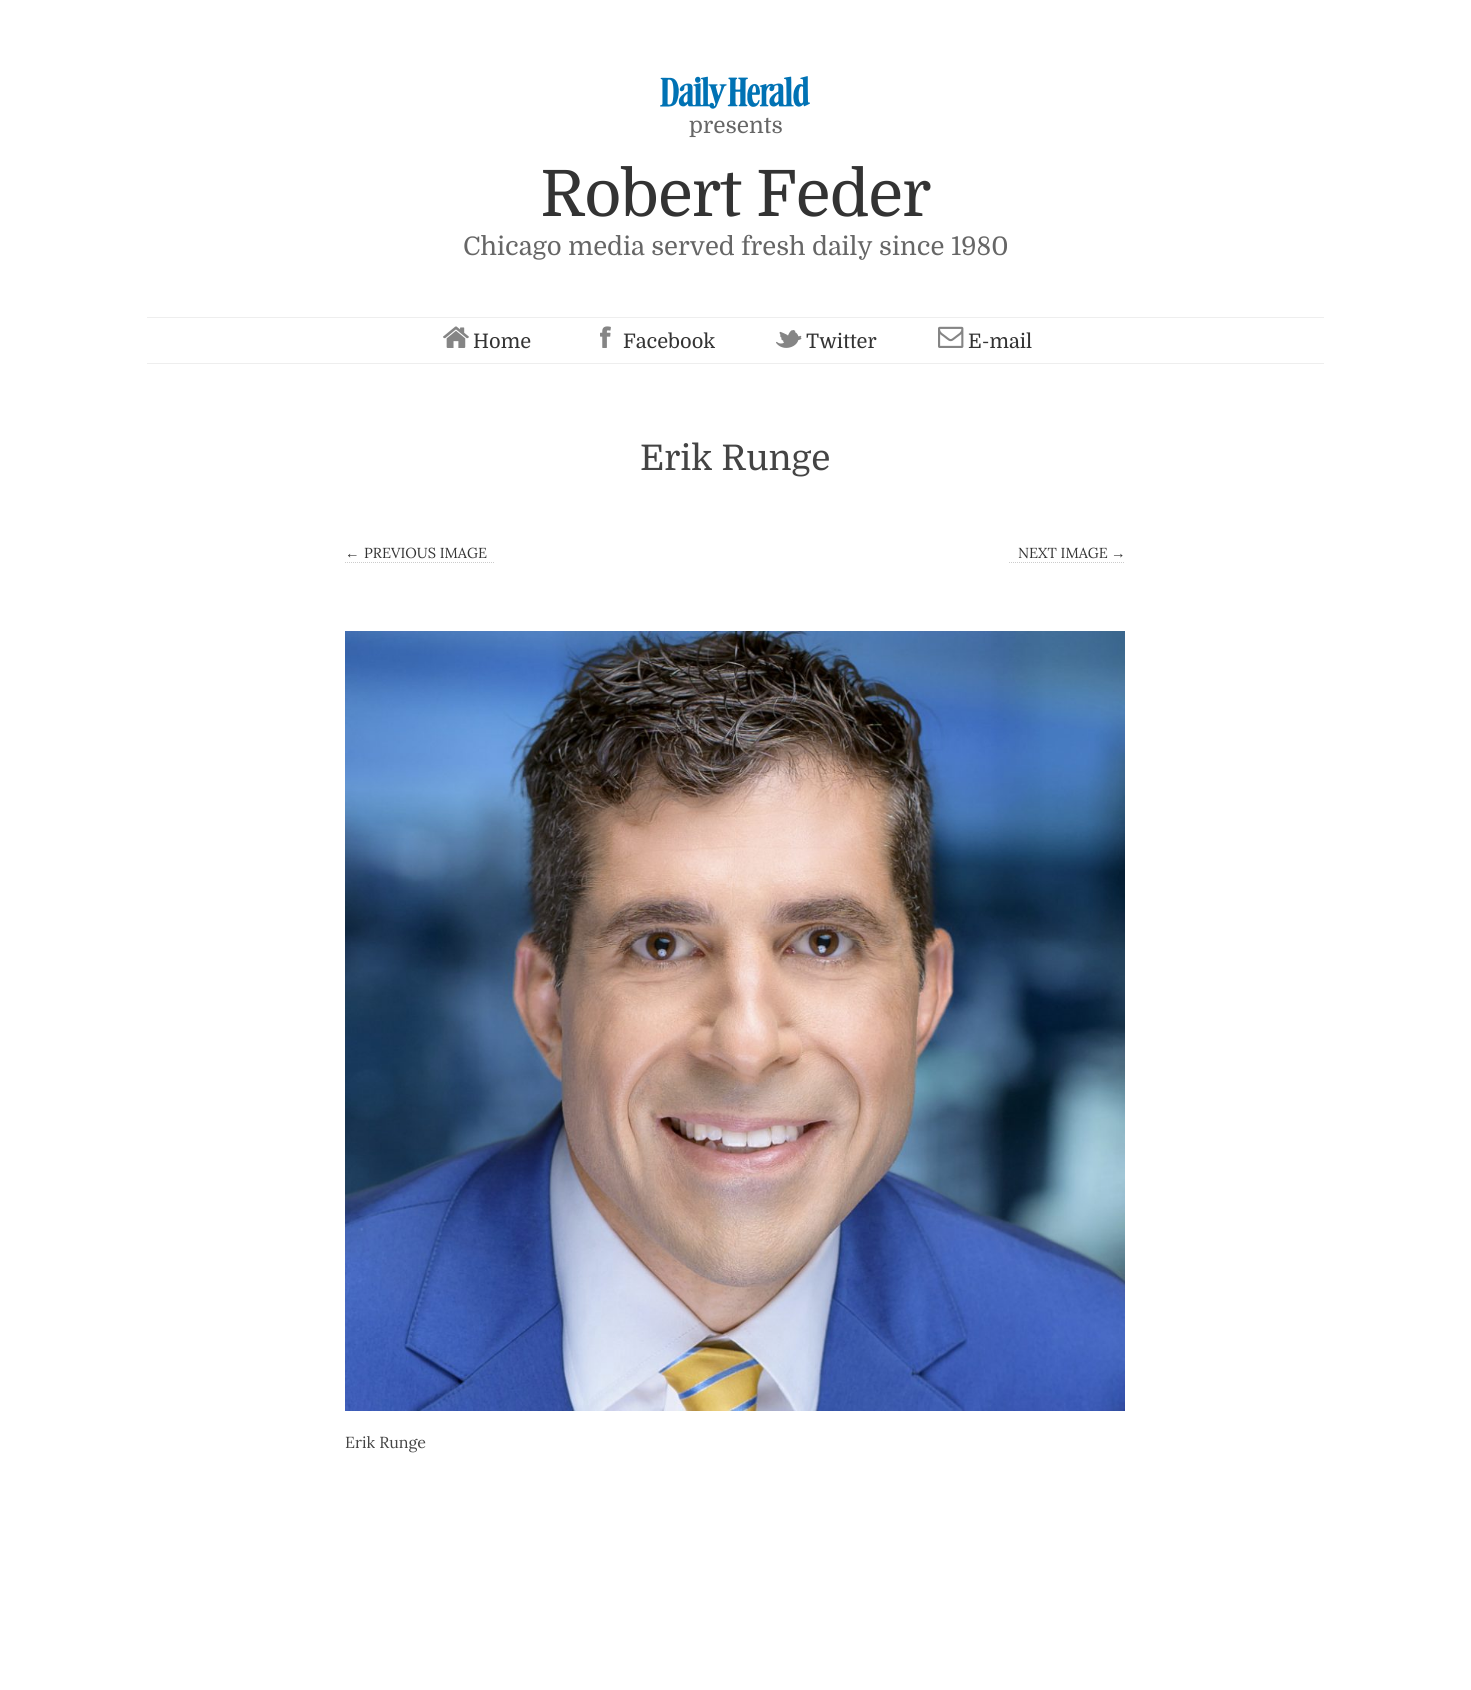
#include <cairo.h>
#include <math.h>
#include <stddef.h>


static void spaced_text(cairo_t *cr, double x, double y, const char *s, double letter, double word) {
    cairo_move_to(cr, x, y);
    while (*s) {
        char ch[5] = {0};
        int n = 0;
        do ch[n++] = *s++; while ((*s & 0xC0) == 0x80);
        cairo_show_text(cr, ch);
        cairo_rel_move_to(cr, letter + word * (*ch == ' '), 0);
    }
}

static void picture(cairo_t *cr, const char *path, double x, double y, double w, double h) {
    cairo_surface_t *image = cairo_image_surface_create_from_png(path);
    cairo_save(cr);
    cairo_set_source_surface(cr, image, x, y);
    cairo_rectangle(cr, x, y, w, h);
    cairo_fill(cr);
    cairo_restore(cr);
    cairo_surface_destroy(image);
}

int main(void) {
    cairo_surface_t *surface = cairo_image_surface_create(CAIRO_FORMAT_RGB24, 1471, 1690);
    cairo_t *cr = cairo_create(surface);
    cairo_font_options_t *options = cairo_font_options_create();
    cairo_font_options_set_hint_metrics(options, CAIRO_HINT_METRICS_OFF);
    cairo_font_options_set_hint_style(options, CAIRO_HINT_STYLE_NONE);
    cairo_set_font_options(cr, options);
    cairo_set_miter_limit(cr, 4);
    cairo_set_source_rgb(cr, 1, 1, 1);
    cairo_paint(cr);
    picture(cr, "img1.png", 660, 76, 150, 33);
    cairo_select_font_face(cr, "Domine", CAIRO_FONT_SLANT_NORMAL, CAIRO_FONT_WEIGHT_NORMAL);
    cairo_set_font_size(cr, 22.5);
    cairo_set_source_rgb(cr, 0.4, 0.4, 0.4);
    cairo_move_to(cr, 689, 133);
    cairo_show_text(cr, "presents");
    cairo_set_font_size(cr, 64);
    cairo_set_source_rgb(cr, 0.2, 0.2, 0.2);
    spaced_text(cr, 540, 216, "Robert Feder", -1, 0);
    cairo_set_font_size(cr, 25.6);
    cairo_set_source_rgb(cr, 0.4, 0.4, 0.4);
    cairo_move_to(cr, 463, 255);
    cairo_show_text(cr, "Chicago media served fresh daily since 1980");
    cairo_set_source_rgb(cr, 0.933, 0.933, 0.933);
    cairo_rectangle(cr, 147, 317, 1177, 1);
    cairo_fill(cr);
    cairo_rectangle(cr, 147, 363, 1177, 1);
    cairo_fill(cr);
    picture(cr, "img2.png", 443, 326, 26, 22);
    cairo_set_font_size(cr, 20);
    cairo_set_source_rgb(cr, 0.2, 0.2, 0.2);
    cairo_move_to(cr, 473, 348);
    cairo_show_text(cr, "Home");
    picture(cr, "img3.png", 600, 326, 11, 22);
    cairo_move_to(cr, 623, 348);
    cairo_show_text(cr, "Facebook");
    picture(cr, "img4.png", 776, 330, 26, 18);
    cairo_move_to(cr, 806, 348);
    cairo_show_text(cr, "Twitter");
    picture(cr, "img5.png", 938, 326, 26, 22);
    cairo_move_to(cr, 968, 348);
    cairo_show_text(cr, "E-mail");
    cairo_set_font_size(cr, 35.25);
    cairo_set_source_rgb(cr, 0.267, 0.267, 0.267);
    cairo_move_to(cr, 640, 470);
    cairo_show_text(cr, "Erik Runge");
    cairo_select_font_face(cr, "Liberation Serif", CAIRO_FONT_SLANT_NORMAL, CAIRO_FONT_WEIGHT_NORMAL);
    cairo_set_font_size(cr, 14.5);
    cairo_set_source_rgb(cr, 0.2, 0.2, 0.2);
    cairo_move_to(cr, 345, 558);
    cairo_show_text(cr, "←");
    cairo_new_path(cr);
    cairo_move_to(cr, 345, 562.5);
    cairo_line_to(cr, 494, 562.5);
    cairo_set_source_rgb(cr, 0.8, 0.8, 0.8);
    cairo_set_line_width(cr, 1);
    cairo_set_dash(cr, (double[]){1, 1}, 2, 0);
    cairo_stroke(cr);
    cairo_select_font_face(cr, "Lora", CAIRO_FONT_SLANT_NORMAL, CAIRO_FONT_WEIGHT_NORMAL);
    cairo_set_source_rgb(cr, 0.2, 0.2, 0.2);
    cairo_move_to(cr, 364, 558);
    cairo_show_text(cr, "PREVIOUS IMAGE");
    cairo_move_to(cr, 1018, 558);
    cairo_show_text(cr, "NEXT IMAGE");
    cairo_select_font_face(cr, "Liberation Serif", CAIRO_FONT_SLANT_NORMAL, CAIRO_FONT_WEIGHT_NORMAL);
    cairo_move_to(cr, 1111, 558);
    cairo_show_text(cr, "→");
    cairo_new_path(cr);
    cairo_move_to(cr, 1009, 562.5);
    cairo_line_to(cr, 1125, 562.5);
    cairo_set_source_rgb(cr, 0.8, 0.8, 0.8);
    cairo_stroke(cr);
    picture(cr, "img6.png", 345, 631, 780, 780);
    cairo_select_font_face(cr, "Lora", CAIRO_FONT_SLANT_NORMAL, CAIRO_FONT_WEIGHT_NORMAL);
    cairo_set_font_size(cr, 16);
    cairo_set_source_rgb(cr, 0.267, 0.267, 0.267);
    cairo_move_to(cr, 345, 1448);
    cairo_show_text(cr, "Erik Runge");
    cairo_surface_write_to_png(surface, "page.png");
    cairo_font_options_destroy(options);
    cairo_destroy(cr);
    cairo_surface_destroy(surface);
    return 0;
}
